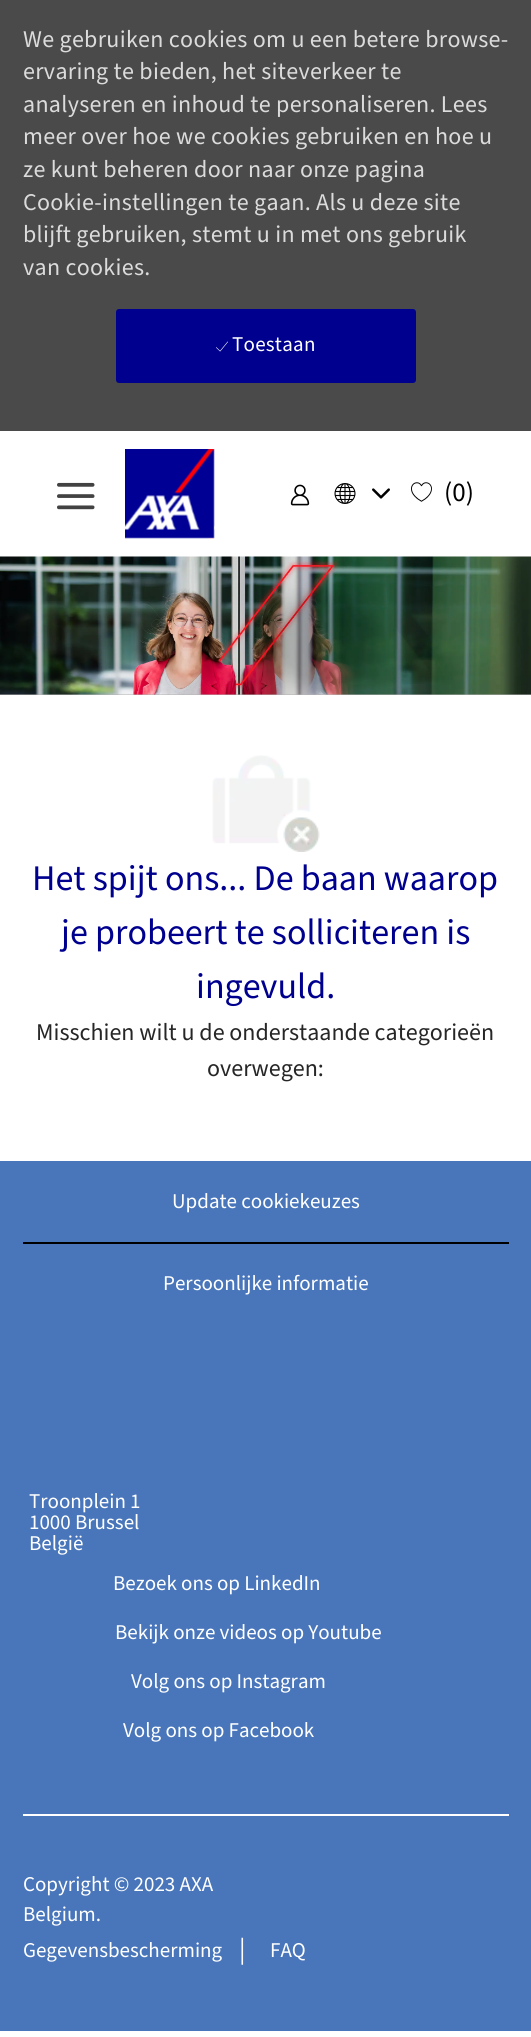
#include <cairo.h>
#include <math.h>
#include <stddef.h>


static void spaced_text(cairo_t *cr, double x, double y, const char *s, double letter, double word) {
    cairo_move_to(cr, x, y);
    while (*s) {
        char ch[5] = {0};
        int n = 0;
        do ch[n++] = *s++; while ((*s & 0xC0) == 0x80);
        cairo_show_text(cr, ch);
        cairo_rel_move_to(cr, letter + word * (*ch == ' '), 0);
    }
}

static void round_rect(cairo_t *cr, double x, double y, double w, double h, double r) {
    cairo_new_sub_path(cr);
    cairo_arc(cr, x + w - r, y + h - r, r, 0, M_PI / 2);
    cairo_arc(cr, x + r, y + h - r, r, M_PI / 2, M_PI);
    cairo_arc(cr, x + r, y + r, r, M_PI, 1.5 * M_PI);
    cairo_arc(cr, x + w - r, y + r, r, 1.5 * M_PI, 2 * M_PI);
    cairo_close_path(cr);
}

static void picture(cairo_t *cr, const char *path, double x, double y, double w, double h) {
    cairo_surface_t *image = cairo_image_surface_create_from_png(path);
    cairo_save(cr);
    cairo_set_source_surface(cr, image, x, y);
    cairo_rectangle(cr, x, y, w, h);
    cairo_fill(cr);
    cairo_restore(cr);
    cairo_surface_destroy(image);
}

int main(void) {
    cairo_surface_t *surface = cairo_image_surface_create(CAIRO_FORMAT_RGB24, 531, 2037);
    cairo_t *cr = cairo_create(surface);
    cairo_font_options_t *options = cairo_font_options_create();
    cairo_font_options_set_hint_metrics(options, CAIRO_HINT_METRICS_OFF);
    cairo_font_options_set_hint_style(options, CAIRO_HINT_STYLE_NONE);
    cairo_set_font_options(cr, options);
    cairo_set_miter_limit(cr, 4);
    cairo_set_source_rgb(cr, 1, 1, 1);
    cairo_paint(cr);
    cairo_set_source_rgb(cr, 0.29, 0.29, 0.29);
    cairo_rectangle(cr, 0, 0, 531, 431);
    cairo_fill(cr);
    cairo_select_font_face(cr, "Source Sans Pro", CAIRO_FONT_SLANT_NORMAL, CAIRO_FONT_WEIGHT_NORMAL);
    cairo_set_font_size(cr, 24);
    cairo_set_source_rgb(cr, 0.859, 0.859, 0.859);
    spaced_text(cr, 23, 47, "We gebruiken cookies om u een betere browse-", 0.3, 0);
    spaced_text(cr, 23, 79, "ervaring te bieden, het siteverkeer te", 0.3, 0);
    spaced_text(cr, 23, 112, "analyseren en inhoud te personaliseren. Lees", 0.3, 0);
    spaced_text(cr, 23, 144, "meer over hoe we cookies gebruiken en hoe u", 0.3, 0);
    spaced_text(cr, 23, 177, "ze kunt beheren door naar onze pagina", 0.3, 0);
    spaced_text(cr, 23, 210, "Cookie-instellingen te gaan. Als u deze site", 0.3, 0);
    spaced_text(cr, 23, 242, "blijft gebruiken, stemt u in met ons gebruik", 0.3, 0);
    spaced_text(cr, 23, 275, "van cookies.", 0.3, 0);
    cairo_set_source_rgb(cr, 0, 0, 0.561);
    round_rect(cr, 117, 310, 298, 72, 2);
    cairo_fill_preserve(cr);
    cairo_stroke(cr);
    picture(cr, "img1.png", 216, 341, 12, 11);
    cairo_set_font_size(cr, 21);
    cairo_set_source_rgb(cr, 1, 1, 1);
    spaced_text(cr, 232, 351, "Toestaan", 0.25, 0);
    cairo_set_source_rgb(cr, 0.702, 0.702, 0.702);
    cairo_rectangle(cr, 0, 694, 531, 1);
    cairo_fill(cr);
    picture(cr, "img2.png", 0, 556, 531, 139);
    picture(cr, "img3.png", 212, 755, 108, 97);
    cairo_set_font_size(cr, 36);
    cairo_set_source_rgb(cr, 0, 0, 0.561);
    cairo_move_to(cr, 32, 890);
    cairo_show_text(cr, "Het spijt ons... De baan waarop");
    cairo_move_to(cr, 61, 944);
    cairo_show_text(cr, "je probeert te solliciteren is");
    cairo_move_to(cr, 196, 998);
    cairo_show_text(cr, "ingevuld.");
    cairo_set_font_size(cr, 24);
    cairo_set_source_rgb(cr, 0.149, 0.149, 0.149);
    cairo_move_to(cr, 36, 1040);
    cairo_show_text(cr, "Misschien wilt u de onderstaande categorieën");
    cairo_move_to(cr, 207, 1076);
    cairo_show_text(cr, "overwegen:");
    picture(cr, "img4.png", 57, 482, 38, 28);
    picture(cr, "img5.png", 125, 449, 90, 90);
    picture(cr, "img6.png", 290, 484, 20, 22);
    picture(cr, "img7.png", 334, 483, 22, 21);
    picture(cr, "img8.png", 372, 488, 18, 11);
    picture(cr, "img9.png", 411, 482, 21, 20);
    cairo_set_font_size(cr, 27);
    cairo_set_source_rgb(cr, 0, 0, 0);
    cairo_move_to(cr, 444, 501);
    cairo_show_text(cr, "(0)");
    cairo_set_source_rgb(cr, 0.286, 0.463, 0.729);
    cairo_rectangle(cr, 0, 1161, 531, 870);
    cairo_fill(cr);
    cairo_set_font_size(cr, 21);
    cairo_set_source_rgb(cr, 1, 1, 1);
    cairo_move_to(cr, 172, 1208);
    cairo_show_text(cr, "Update cookiekeuzes");
    cairo_set_source_rgb(cr, 0, 0, 0);
    cairo_rectangle(cr, 23, 1242, 486, 2);
    cairo_fill(cr);
    cairo_set_source_rgb(cr, 1, 1, 1);
    cairo_move_to(cr, 163, 1290);
    cairo_show_text(cr, "Persoonlijke informatie");
    cairo_move_to(cr, 29, 1508);
    cairo_show_text(cr, "Troonplein 1");
    cairo_move_to(cr, 29, 1529);
    cairo_show_text(cr, "1000 Brussel");
    cairo_move_to(cr, 29, 1550);
    cairo_show_text(cr, "België");
    cairo_move_to(cr, 113, 1590);
    cairo_show_text(cr, "Bezoek ons op LinkedIn");
    cairo_move_to(cr, 115, 1639);
    cairo_show_text(cr, "Bekijk onze videos op Youtube");
    cairo_move_to(cr, 131, 1688);
    cairo_show_text(cr, "Volg ons op Instagram");
    cairo_move_to(cr, 123, 1737);
    cairo_show_text(cr, "Volg ons op Facebook");
    cairo_rectangle(cr, 23, 1814, 486, 2);
    cairo_fill(cr);
    cairo_move_to(cr, 23, 1891);
    cairo_show_text(cr, "Copyright © 2023 AXA");
    cairo_move_to(cr, 23, 1921);
    cairo_show_text(cr, "Belgium.");
    cairo_move_to(cr, 23, 1957);
    cairo_show_text(cr, "Gegevensbescherming");
    cairo_set_font_size(cr, 27);
    cairo_move_to(cr, 239, 1958);
    cairo_show_text(cr, "|");
    cairo_set_font_size(cr, 21);
    cairo_move_to(cr, 270, 1957);
    cairo_show_text(cr, "FAQ");
    cairo_surface_write_to_png(surface, "page.png");
    cairo_font_options_destroy(options);
    cairo_destroy(cr);
    cairo_surface_destroy(surface);
    return 0;
}
